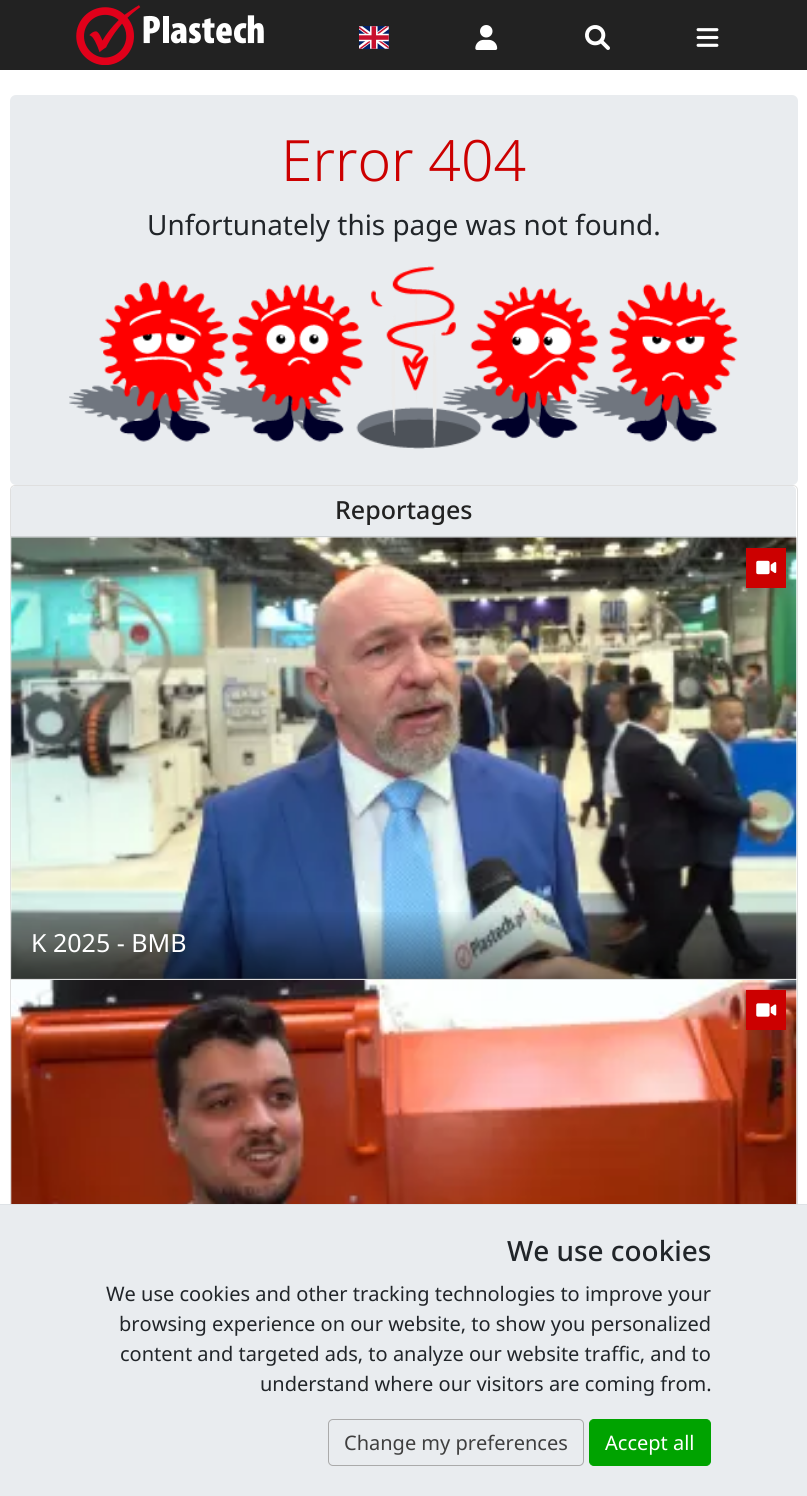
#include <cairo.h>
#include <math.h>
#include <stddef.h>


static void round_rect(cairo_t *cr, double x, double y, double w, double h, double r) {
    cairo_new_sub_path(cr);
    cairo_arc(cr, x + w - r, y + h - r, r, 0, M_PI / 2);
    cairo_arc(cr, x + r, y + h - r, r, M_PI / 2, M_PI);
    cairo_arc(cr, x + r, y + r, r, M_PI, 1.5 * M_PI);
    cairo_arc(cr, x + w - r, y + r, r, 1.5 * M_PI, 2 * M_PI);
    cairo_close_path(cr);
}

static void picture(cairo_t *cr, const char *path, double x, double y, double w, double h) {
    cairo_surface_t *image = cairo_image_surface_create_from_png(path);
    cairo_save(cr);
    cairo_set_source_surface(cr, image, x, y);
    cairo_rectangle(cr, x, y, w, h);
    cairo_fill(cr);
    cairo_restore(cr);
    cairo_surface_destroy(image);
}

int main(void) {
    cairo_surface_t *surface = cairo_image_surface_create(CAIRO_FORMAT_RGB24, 807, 1496);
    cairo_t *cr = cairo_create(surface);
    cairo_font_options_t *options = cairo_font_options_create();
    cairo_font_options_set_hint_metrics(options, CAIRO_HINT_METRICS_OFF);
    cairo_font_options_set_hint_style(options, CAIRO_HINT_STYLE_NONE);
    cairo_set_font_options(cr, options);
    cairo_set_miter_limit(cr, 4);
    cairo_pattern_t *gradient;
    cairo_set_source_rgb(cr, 1, 1, 1);
    cairo_paint(cr);
    cairo_set_source_rgb(cr, 0.133, 0.133, 0.133);
    cairo_rectangle(cr, 0, 0, 807, 70);
    cairo_fill(cr);
    picture(cr, "img1.png", 76, 5, 188, 60);
    picture(cr, "img2.png", 359, 26, 30, 23);
    picture(cr, "img3.png", 475, 25, 23, 25);
    picture(cr, "img4.png", 585, 25, 25, 25);
    picture(cr, "img5.png", 696, 28, 23, 19);
    cairo_set_source_rgb(cr, 0.914, 0.925, 0.937);
    round_rect(cr, 10, 95, 788, 390, 6);
    cairo_fill(cr);
    cairo_select_font_face(cr, "Noto Sans Light", CAIRO_FONT_SLANT_NORMAL, CAIRO_FONT_WEIGHT_NORMAL);
    cairo_set_font_size(cr, 57);
    cairo_set_source_rgb(cr, 0.8, 0, 0);
    cairo_move_to(cr, 281, 181);
    cairo_show_text(cr, "Error 404");
    cairo_select_font_face(cr, "Noto Sans", CAIRO_FONT_SLANT_NORMAL, CAIRO_FONT_WEIGHT_NORMAL);
    cairo_set_font_size(cr, 27.9);
    cairo_set_source_rgb(cr, 0.129, 0.145, 0.161);
    cairo_move_to(cr, 147, 235);
    cairo_show_text(cr, "Unfortunately this page was not found.");
    picture(cr, "img6.png", 69, 266, 669, 183);
    round_rect(cr, 10.5, 485.5, 787, 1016, 4.5);
    cairo_set_source_rgb(cr, 0.875, 0.875, 0.875);
    cairo_set_line_width(cr, 1);
    cairo_stroke(cr);
    cairo_set_source_rgb(cr, 0.914, 0.925, 0.937);
    cairo_new_path(cr);
    cairo_move_to(cr, 15, 486);
    cairo_line_to(cr, 792, 486);
    cairo_curve_to(cr, 794, 486, 796, 488, 796, 490);
    cairo_line_to(cr, 796, 538);
    cairo_line_to(cr, 11, 538);
    cairo_line_to(cr, 11, 490);
    cairo_curve_to(cr, 11, 488, 13, 486, 15, 486);
    cairo_close_path(cr);
    cairo_fill(cr);
    cairo_set_source_rgb(cr, 0.8, 0.812, 0.82);
    cairo_rectangle(cr, 11, 536, 785, 1);
    cairo_fill(cr);
    cairo_select_font_face(cr, "Noto Sans Medium", CAIRO_FONT_SLANT_NORMAL, CAIRO_FONT_WEIGHT_NORMAL);
    cairo_set_font_size(cr, 25);
    cairo_set_source_rgb(cr, 0.133, 0.133, 0.133);
    cairo_move_to(cr, 335, 519);
    cairo_show_text(cr, "Reportages");
    cairo_set_source_rgb(cr, 0.875, 0.875, 0.875);
    cairo_rectangle(cr, 11, 979, 785, 1);
    cairo_fill(cr);
    picture(cr, "img7.png", 11, 537, 786, 442);
    cairo_set_source_rgb(cr, 0.8, 0, 0);
    cairo_rectangle(cr, 746, 548, 40, 40);
    cairo_fill(cr);
    picture(cr, "img8.png", 756, 560, 21, 15);
    gradient = cairo_pattern_create_linear(404, 909, 404, 979);
    cairo_pattern_add_color_stop_rgba(gradient, 0, 0, 0, 0, 0);
    cairo_pattern_add_color_stop_rgba(gradient, 0.29, 0, 0, 0, 0.15);
    cairo_pattern_add_color_stop_rgba(gradient, 1, 0, 0, 0, 0.5);
    cairo_set_source(cr, gradient);
    cairo_pattern_destroy(gradient);
    cairo_rectangle(cr, 11, 912, 785, 67);
    cairo_fill(cr);
    cairo_select_font_face(cr, "Noto Sans", CAIRO_FONT_SLANT_NORMAL, CAIRO_FONT_WEIGHT_NORMAL);
    cairo_set_source_rgb(cr, 1, 1, 1);
    cairo_move_to(cr, 31, 952);
    cairo_show_text(cr, "K 2025 - BMB");
    picture(cr, "img9.png", 11, 980, 786, 224);
    cairo_set_source_rgb(cr, 0.8, 0, 0);
    cairo_rectangle(cr, 746, 990, 40, 40);
    cairo_fill(cr);
    picture(cr, "img10.png", 756, 1003, 21, 14);
    cairo_set_source_rgb(cr, 0.914, 0.925, 0.937);
    cairo_rectangle(cr, 0, 1205, 807, 291);
    cairo_fill(cr);
    cairo_set_source_rgb(cr, 0.871, 0.886, 0.902);
    cairo_rectangle(cr, 0, 1204, 807, 1);
    cairo_fill(cr);
    cairo_select_font_face(cr, "Noto Sans Medium", CAIRO_FONT_SLANT_NORMAL, CAIRO_FONT_WEIGHT_NORMAL);
    cairo_set_font_size(cr, 27.9);
    cairo_set_source_rgb(cr, 0.129, 0.145, 0.161);
    cairo_move_to(cr, 507, 1261);
    cairo_show_text(cr, "We use cookies");
    cairo_select_font_face(cr, "Noto Sans", CAIRO_FONT_SLANT_NORMAL, CAIRO_FONT_WEIGHT_NORMAL);
    cairo_set_font_size(cr, 20);
    cairo_move_to(cr, 106, 1301);
    cairo_show_text(cr, "We use cookies and other tracking technologies to improve your");
    cairo_move_to(cr, 119, 1331);
    cairo_show_text(cr, "browsing experience on our website, to show you personalized");
    cairo_move_to(cr, 120, 1361);
    cairo_show_text(cr, "content and targeted ads, to analyze our website traffic, and to");
    cairo_move_to(cr, 260, 1391);
    cairo_show_text(cr, "understand where our visitors are coming from.");
    round_rect(cr, 328.5, 1419.5, 255, 46, 4.5);
    cairo_set_source_rgb(cr, 0.667, 0.667, 0.667);
    cairo_stroke(cr);
    cairo_set_source_rgb(cr, 0.247, 0.247, 0.247);
    cairo_move_to(cr, 344, 1450);
    cairo_show_text(cr, "Change my preferences");
    cairo_set_source_rgb(cr, 0, 0.639, 0);
    round_rect(cr, 589.5, 1419.5, 121, 46, 4.5);
    cairo_fill_preserve(cr);
    cairo_stroke(cr);
    cairo_set_source_rgb(cr, 1, 1, 1);
    cairo_move_to(cr, 605, 1450);
    cairo_show_text(cr, "Accept all");
    cairo_surface_write_to_png(surface, "page.png");
    cairo_font_options_destroy(options);
    cairo_destroy(cr);
    cairo_surface_destroy(surface);
    return 0;
}
